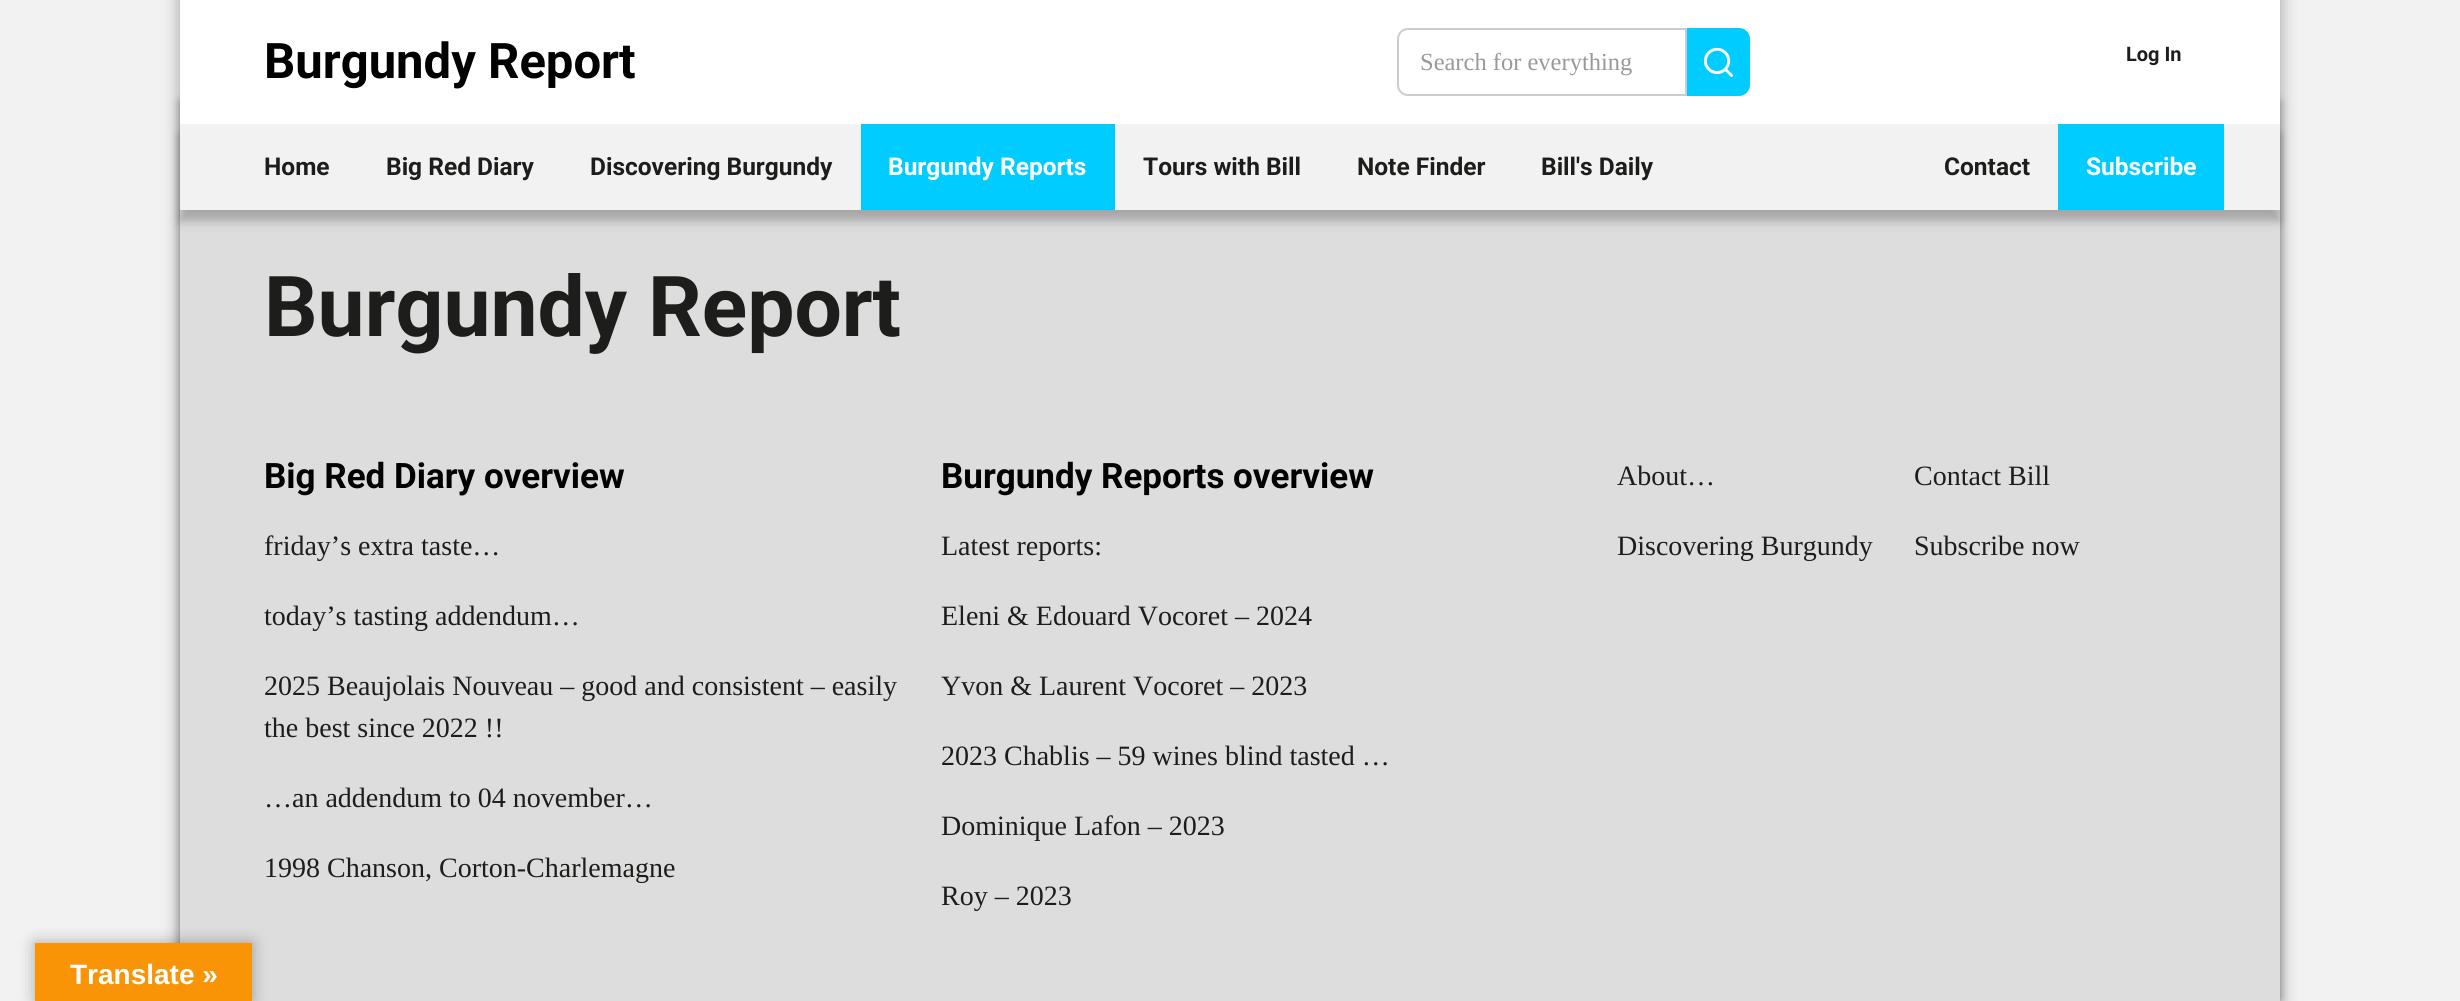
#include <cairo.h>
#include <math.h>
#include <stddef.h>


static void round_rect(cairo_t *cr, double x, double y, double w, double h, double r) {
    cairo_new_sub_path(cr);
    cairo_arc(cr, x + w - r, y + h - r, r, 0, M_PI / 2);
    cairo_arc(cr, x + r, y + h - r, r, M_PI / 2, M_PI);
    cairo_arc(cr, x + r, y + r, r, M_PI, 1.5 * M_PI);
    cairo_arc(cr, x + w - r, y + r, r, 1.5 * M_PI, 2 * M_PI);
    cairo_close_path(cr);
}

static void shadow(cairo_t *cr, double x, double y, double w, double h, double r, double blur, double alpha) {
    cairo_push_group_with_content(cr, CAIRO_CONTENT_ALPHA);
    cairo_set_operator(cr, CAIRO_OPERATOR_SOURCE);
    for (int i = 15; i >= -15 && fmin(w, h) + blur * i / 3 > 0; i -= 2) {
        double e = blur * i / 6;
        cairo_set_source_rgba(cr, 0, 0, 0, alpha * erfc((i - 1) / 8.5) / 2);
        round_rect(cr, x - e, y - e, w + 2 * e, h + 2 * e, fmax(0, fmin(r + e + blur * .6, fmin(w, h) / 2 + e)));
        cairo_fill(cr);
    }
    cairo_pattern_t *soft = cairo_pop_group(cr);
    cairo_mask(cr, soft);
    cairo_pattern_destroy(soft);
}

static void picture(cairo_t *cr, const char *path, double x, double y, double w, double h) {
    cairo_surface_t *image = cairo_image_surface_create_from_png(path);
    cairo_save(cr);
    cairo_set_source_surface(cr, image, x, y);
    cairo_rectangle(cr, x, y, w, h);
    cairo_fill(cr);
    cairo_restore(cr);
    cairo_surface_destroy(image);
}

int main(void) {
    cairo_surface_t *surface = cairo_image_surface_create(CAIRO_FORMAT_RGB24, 2460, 1001);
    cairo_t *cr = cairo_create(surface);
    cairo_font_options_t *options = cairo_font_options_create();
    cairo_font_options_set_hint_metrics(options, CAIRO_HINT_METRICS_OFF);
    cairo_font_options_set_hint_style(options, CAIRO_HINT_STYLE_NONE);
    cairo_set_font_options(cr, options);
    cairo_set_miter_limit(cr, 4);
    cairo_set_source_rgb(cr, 0.949, 0.949, 0.949);
    cairo_paint(cr);
    cairo_set_source_rgb(cr, 0, 0, 0);
    shadow(cr, 180, -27, 2100, 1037, 0, 9, 0.35);
    shadow(cr, 180, 102, 2100, 896, 0, 4.5, 0.35);
    cairo_set_source_rgb(cr, 1, 1, 1);
    cairo_rectangle(cr, 180, 0, 2100, 124);
    cairo_fill(cr);
    cairo_select_font_face(cr, "Roboto", CAIRO_FONT_SLANT_NORMAL, CAIRO_FONT_WEIGHT_BOLD);
    cairo_set_font_size(cr, 49);
    cairo_set_source_rgb(cr, 0, 0, 0);
    cairo_move_to(cr, 264, 78);
    cairo_show_text(cr, "Burgundy Report");
    cairo_new_path(cr);
    cairo_move_to(cr, 1408, 29);
    cairo_line_to(cr, 1686, 29);
    cairo_line_to(cr, 1686, 95);
    cairo_line_to(cr, 1408, 95);
    cairo_curve_to(cr, 1402.5, 95, 1398, 90.5, 1398, 85);
    cairo_line_to(cr, 1398, 39);
    cairo_curve_to(cr, 1398, 33.5, 1402.5, 29, 1408, 29);
    cairo_close_path(cr);
    cairo_set_source_rgb(cr, 0.8, 0.8, 0.8);
    cairo_stroke(cr);
    cairo_select_font_face(cr, "Liberation Serif", CAIRO_FONT_SLANT_NORMAL, CAIRO_FONT_WEIGHT_NORMAL);
    cairo_set_font_size(cr, 24.5);
    cairo_set_source_rgb(cr, 0.6, 0.6, 0.6);
    cairo_move_to(cr, 1420, 70);
    cairo_show_text(cr, "Search for everything");
    cairo_set_source_rgb(cr, 0, 0.8, 1);
    cairo_new_path(cr);
    cairo_move_to(cr, 1687, 28);
    cairo_line_to(cr, 1739, 28);
    cairo_curve_to(cr, 1745, 28, 1750, 33, 1750, 39);
    cairo_line_to(cr, 1750, 85);
    cairo_curve_to(cr, 1750, 91, 1745, 96, 1739, 96);
    cairo_line_to(cr, 1687, 96);
    cairo_close_path(cr);
    cairo_fill(cr);
    picture(cr, "img1.png", 1703, 47, 31, 30);
    cairo_select_font_face(cr, "Roboto", CAIRO_FONT_SLANT_NORMAL, CAIRO_FONT_WEIGHT_BOLD);
    cairo_set_font_size(cr, 20);
    cairo_set_source_rgb(cr, 0.114, 0.114, 0.106);
    cairo_move_to(cr, 2126, 61);
    cairo_show_text(cr, "Log In");
    cairo_set_source_rgb(cr, 0.867, 0.867, 0.867);
    cairo_rectangle(cr, 180, 210, 2100, 791);
    cairo_fill(cr);
    cairo_set_source_rgb(cr, 0, 0, 0);
    shadow(cr, 180, 135, 2100, 86, 0, 5, 0.25);
    cairo_set_source_rgb(cr, 0.949, 0.949, 0.949);
    cairo_rectangle(cr, 180, 124, 2100, 86);
    cairo_fill(cr);
    cairo_set_font_size(cr, 24.5);
    cairo_set_source_rgb(cr, 0.114, 0.114, 0.106);
    cairo_move_to(cr, 264, 175);
    cairo_show_text(cr, "Home");
    cairo_move_to(cr, 386, 175);
    cairo_show_text(cr, "Big Red Diary");
    cairo_move_to(cr, 590, 175);
    cairo_show_text(cr, "Discovering Burgundy");
    cairo_set_source_rgb(cr, 0, 0.8, 1);
    cairo_rectangle(cr, 861, 124, 254, 86);
    cairo_fill(cr);
    cairo_set_source_rgb(cr, 1, 1, 1);
    cairo_move_to(cr, 888, 175);
    cairo_show_text(cr, "Burgundy Reports");
    cairo_set_source_rgb(cr, 0.114, 0.114, 0.106);
    cairo_move_to(cr, 1143, 175);
    cairo_show_text(cr, "Tours with Bill");
    cairo_move_to(cr, 1357, 175);
    cairo_show_text(cr, "Note Finder");
    cairo_move_to(cr, 1541, 175);
    cairo_show_text(cr, "Bill's Daily");
    cairo_move_to(cr, 1944, 175);
    cairo_show_text(cr, "Contact");
    cairo_set_source_rgb(cr, 0, 0.8, 1);
    cairo_rectangle(cr, 2058, 124, 166, 86);
    cairo_fill(cr);
    cairo_set_source_rgb(cr, 1, 1, 1);
    cairo_move_to(cr, 2086, 175);
    cairo_show_text(cr, "Subscribe");
    cairo_set_font_size(cr, 84);
    cairo_set_source_rgb(cr, 0.114, 0.114, 0.106);
    cairo_move_to(cr, 264, 336);
    cairo_show_text(cr, "Burgundy Report");
    cairo_set_font_size(cr, 35);
    cairo_set_source_rgb(cr, 0, 0, 0);
    cairo_move_to(cr, 264, 488);
    cairo_show_text(cr, "Big Red Diary overview");
    cairo_select_font_face(cr, "Liberation Serif", CAIRO_FONT_SLANT_NORMAL, CAIRO_FONT_WEIGHT_NORMAL);
    cairo_set_font_size(cr, 28);
    cairo_set_source_rgb(cr, 0.114, 0.114, 0.106);
    cairo_move_to(cr, 264, 555);
    cairo_show_text(cr, "friday’s extra taste…");
    cairo_move_to(cr, 264, 625);
    cairo_show_text(cr, "today’s tasting addendum…");
    cairo_move_to(cr, 264, 695);
    cairo_show_text(cr, "2025 Beaujolais Nouveau – good and consistent – easily");
    cairo_move_to(cr, 264, 737);
    cairo_show_text(cr, "the best since 2022 !!");
    cairo_move_to(cr, 264, 807);
    cairo_show_text(cr, "…an addendum to 04 november…");
    cairo_move_to(cr, 264, 877);
    cairo_show_text(cr, "1998 Chanson, Corton-Charlemagne");
    cairo_select_font_face(cr, "Roboto", CAIRO_FONT_SLANT_NORMAL, CAIRO_FONT_WEIGHT_BOLD);
    cairo_set_font_size(cr, 35);
    cairo_set_source_rgb(cr, 0, 0, 0);
    cairo_move_to(cr, 941, 488);
    cairo_show_text(cr, "Burgundy Reports overview");
    cairo_select_font_face(cr, "Liberation Serif", CAIRO_FONT_SLANT_NORMAL, CAIRO_FONT_WEIGHT_NORMAL);
    cairo_set_font_size(cr, 28);
    cairo_set_source_rgb(cr, 0.114, 0.114, 0.106);
    cairo_move_to(cr, 941, 555);
    cairo_show_text(cr, "Latest reports:");
    cairo_move_to(cr, 941, 625);
    cairo_show_text(cr, "Eleni & Edouard Vocoret – 2024");
    cairo_move_to(cr, 941, 695);
    cairo_show_text(cr, "Yvon & Laurent Vocoret – 2023");
    cairo_move_to(cr, 941, 765);
    cairo_show_text(cr, "2023 Chablis – 59 wines blind tasted …");
    cairo_move_to(cr, 941, 835);
    cairo_show_text(cr, "Dominique Lafon – 2023");
    cairo_move_to(cr, 941, 905);
    cairo_show_text(cr, "Roy – 2023");
    cairo_move_to(cr, 1617, 485);
    cairo_show_text(cr, "About…");
    cairo_move_to(cr, 1617, 555);
    cairo_show_text(cr, "Discovering Burgundy");
    cairo_move_to(cr, 1914, 485);
    cairo_show_text(cr, "Contact Bill");
    cairo_move_to(cr, 1914, 555);
    cairo_show_text(cr, "Subscribe now");
    cairo_set_source_rgb(cr, 0, 0, 0);
    shadow(cr, 35, 943, 217, 58, 0, 8, 0.3);
    cairo_set_source_rgb(cr, 0.973, 0.58, 0.024);
    cairo_rectangle(cr, 35, 943, 217, 58);
    cairo_fill(cr);
    cairo_select_font_face(cr, "Liberation Sans", CAIRO_FONT_SLANT_NORMAL, CAIRO_FONT_WEIGHT_BOLD);
    cairo_set_source_rgb(cr, 1, 1, 1);
    cairo_move_to(cr, 70, 984);
    cairo_show_text(cr, "Translate »");
    cairo_surface_write_to_png(surface, "page.png");
    cairo_font_options_destroy(options);
    cairo_destroy(cr);
    cairo_surface_destroy(surface);
    return 0;
}
